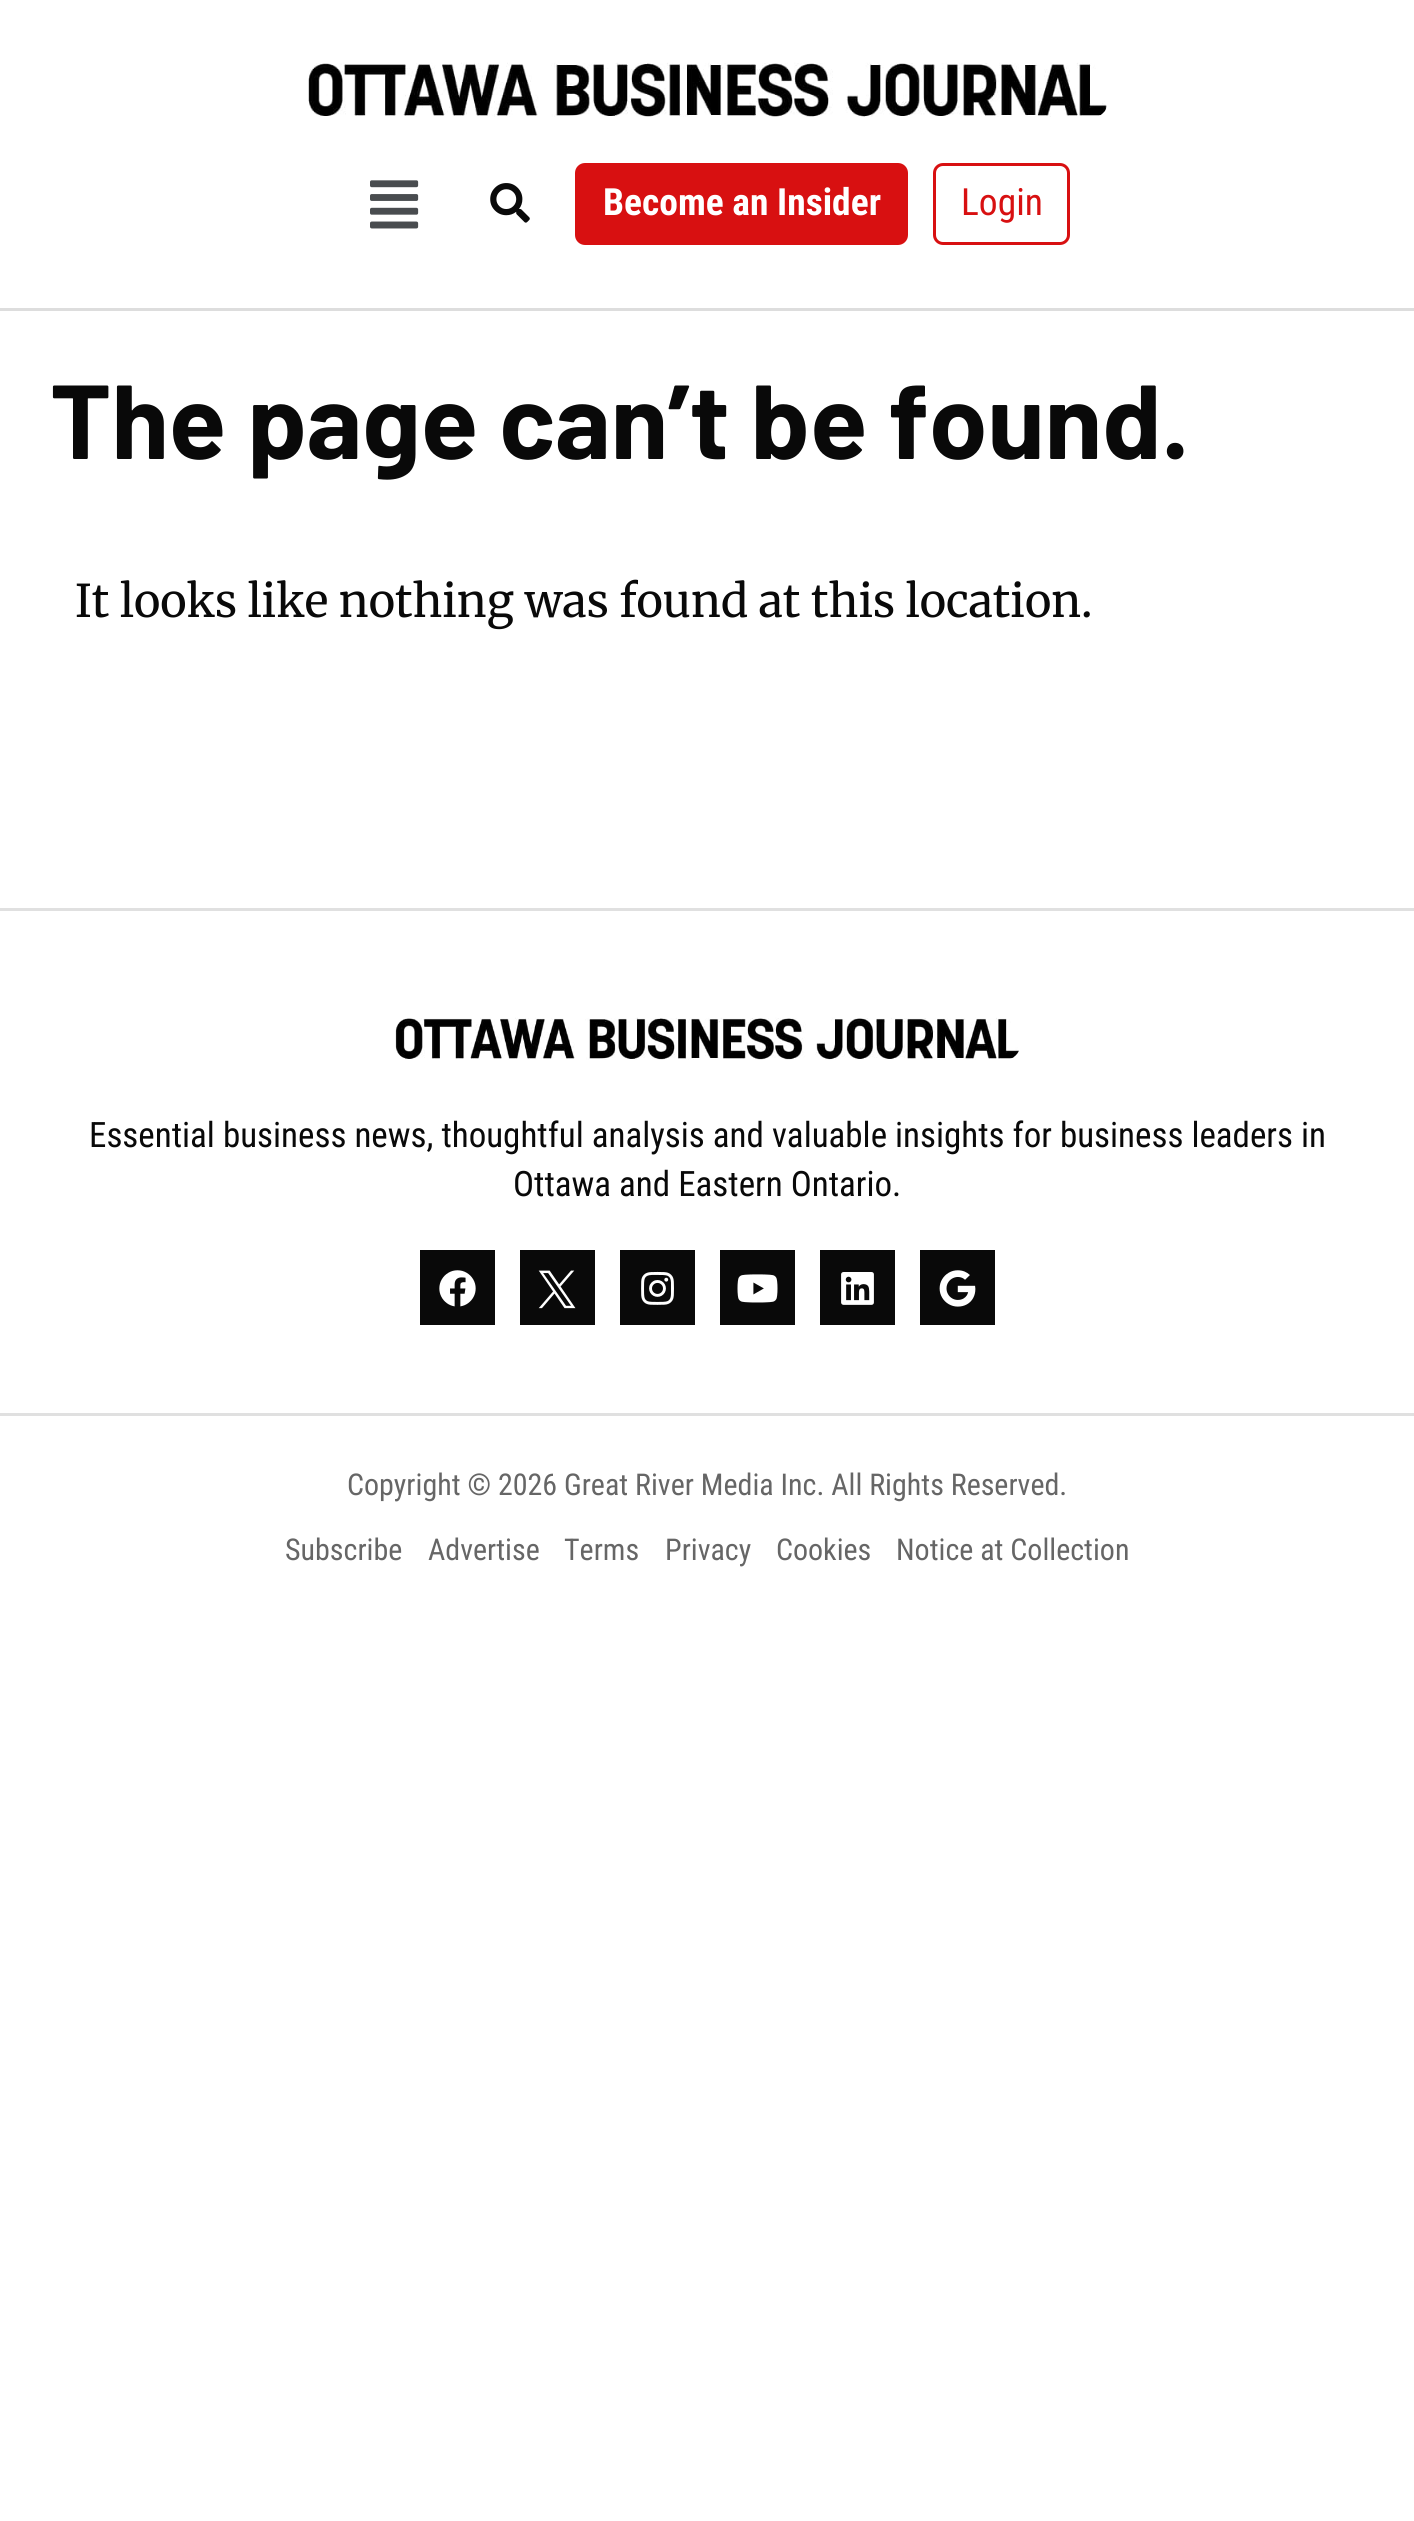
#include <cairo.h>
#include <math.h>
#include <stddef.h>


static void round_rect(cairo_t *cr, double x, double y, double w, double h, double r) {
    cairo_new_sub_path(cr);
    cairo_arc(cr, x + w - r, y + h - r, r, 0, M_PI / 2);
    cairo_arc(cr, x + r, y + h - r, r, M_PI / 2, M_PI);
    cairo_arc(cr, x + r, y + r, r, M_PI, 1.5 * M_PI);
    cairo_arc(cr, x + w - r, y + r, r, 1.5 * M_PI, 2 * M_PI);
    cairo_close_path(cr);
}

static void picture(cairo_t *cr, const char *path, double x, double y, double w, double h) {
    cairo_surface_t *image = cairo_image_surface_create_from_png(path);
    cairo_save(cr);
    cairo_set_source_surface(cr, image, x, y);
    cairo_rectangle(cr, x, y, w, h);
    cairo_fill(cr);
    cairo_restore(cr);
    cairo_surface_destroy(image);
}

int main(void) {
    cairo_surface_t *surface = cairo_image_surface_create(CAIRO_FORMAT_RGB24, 1414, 2521);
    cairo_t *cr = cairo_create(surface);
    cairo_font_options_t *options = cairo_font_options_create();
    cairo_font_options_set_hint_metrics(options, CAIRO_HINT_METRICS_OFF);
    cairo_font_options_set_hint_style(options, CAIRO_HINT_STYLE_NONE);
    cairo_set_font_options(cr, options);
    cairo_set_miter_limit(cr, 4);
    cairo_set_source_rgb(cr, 1, 1, 1);
    cairo_paint(cr);
    cairo_set_source_rgb(cr, 0.867, 0.867, 0.867);
    cairo_rectangle(cr, 0, 308, 1414, 3);
    cairo_fill(cr);
    picture(cr, "img1.png", 308, 62, 799, 55);
    picture(cr, "img2.png", 370, 180, 49, 49);
    picture(cr, "img3.png", 490, 183, 40, 40);
    cairo_set_source_rgb(cr, 0.847, 0.063, 0.067);
    round_rect(cr, 576.5, 164.5, 330, 79, 8.5);
    cairo_fill_preserve(cr);
    cairo_set_line_width(cr, 3);
    cairo_stroke(cr);
    cairo_select_font_face(cr, "Roboto Condensed", CAIRO_FONT_SLANT_NORMAL, CAIRO_FONT_WEIGHT_BOLD);
    cairo_set_font_size(cr, 37.5);
    cairo_set_source_rgb(cr, 1, 1, 1);
    cairo_move_to(cr, 603, 215);
    cairo_show_text(cr, "Become an Insider");
    round_rect(cr, 934.5, 164.5, 134, 79, 8.5);
    cairo_set_source_rgb(cr, 0.847, 0.063, 0.067);
    cairo_stroke(cr);
    cairo_select_font_face(cr, "Roboto Condensed", CAIRO_FONT_SLANT_NORMAL, CAIRO_FONT_WEIGHT_NORMAL);
    cairo_move_to(cr, 961, 215);
    cairo_show_text(cr, "Login");
    cairo_select_font_face(cr, "Barlow", CAIRO_FONT_SLANT_NORMAL, CAIRO_FONT_WEIGHT_BOLD);
    cairo_set_font_size(cr, 105);
    cairo_set_source_rgb(cr, 0.039, 0.039, 0.039);
    cairo_move_to(cr, 50, 459);
    cairo_show_text(cr, "The page can’t be found.");
    cairo_select_font_face(cr, "Merriweather", CAIRO_FONT_SLANT_NORMAL, CAIRO_FONT_WEIGHT_NORMAL);
    cairo_set_font_size(cr, 45);
    cairo_move_to(cr, 75, 617);
    cairo_show_text(cr, "It looks like nothing was found at this location.");
    cairo_set_source_rgb(cr, 0.878, 0.878, 0.878);
    cairo_rectangle(cr, 0, 908, 1414, 3);
    cairo_fill(cr);
    picture(cr, "img4.png", 395, 1017, 624, 43);
    cairo_select_font_face(cr, "Roboto Condensed", CAIRO_FONT_SLANT_NORMAL, CAIRO_FONT_WEIGHT_NORMAL);
    cairo_set_font_size(cr, 35);
    cairo_set_source_rgb(cr, 0.039, 0.039, 0.039);
    cairo_move_to(cr, 89, 1147);
    cairo_show_text(cr, "Essential business news, thoughtful analysis and valuable insights for business leaders in");
    cairo_move_to(cr, 513, 1196);
    cairo_show_text(cr, "Ottawa and Eastern Ontario.");
    cairo_rectangle(cr, 420, 1250, 75, 75);
    cairo_fill(cr);
    picture(cr, "img5.png", 439, 1270, 37, 37);
    cairo_rectangle(cr, 520, 1250, 75, 75);
    cairo_fill(cr);
    picture(cr, "img6.png", 538, 1270, 38, 39);
    cairo_rectangle(cr, 620, 1250, 75, 75);
    cairo_fill(cr);
    picture(cr, "img7.png", 641, 1271, 33, 34);
    cairo_rectangle(cr, 720, 1250, 75, 75);
    cairo_fill(cr);
    picture(cr, "img8.png", 737, 1274, 41, 29);
    cairo_rectangle(cr, 820, 1250, 75, 75);
    cairo_fill(cr);
    picture(cr, "img9.png", 841, 1272, 33, 33);
    cairo_rectangle(cr, 920, 1250, 75, 75);
    cairo_fill(cr);
    picture(cr, "img10.png", 939, 1270, 37, 37);
    cairo_set_source_rgb(cr, 0.878, 0.878, 0.878);
    cairo_rectangle(cr, 0, 1413, 1414, 3);
    cairo_fill(cr);
    cairo_set_font_size(cr, 30);
    cairo_set_source_rgb(cr, 0.4, 0.4, 0.4);
    cairo_move_to(cr, 347, 1495);
    cairo_show_text(cr, "Copyright © 2026 Great River Media Inc. All Rights Reserved.");
    cairo_move_to(cr, 285, 1560);
    cairo_show_text(cr, "Subscribe");
    cairo_move_to(cr, 428, 1560);
    cairo_show_text(cr, "Advertise");
    cairo_move_to(cr, 564, 1560);
    cairo_show_text(cr, "Terms");
    cairo_move_to(cr, 665, 1560);
    cairo_show_text(cr, "Privacy");
    cairo_move_to(cr, 776, 1560);
    cairo_show_text(cr, "Cookies");
    cairo_move_to(cr, 896, 1560);
    cairo_show_text(cr, "Notice at Collection");
    cairo_surface_write_to_png(surface, "page.png");
    cairo_font_options_destroy(options);
    cairo_destroy(cr);
    cairo_surface_destroy(surface);
    return 0;
}
